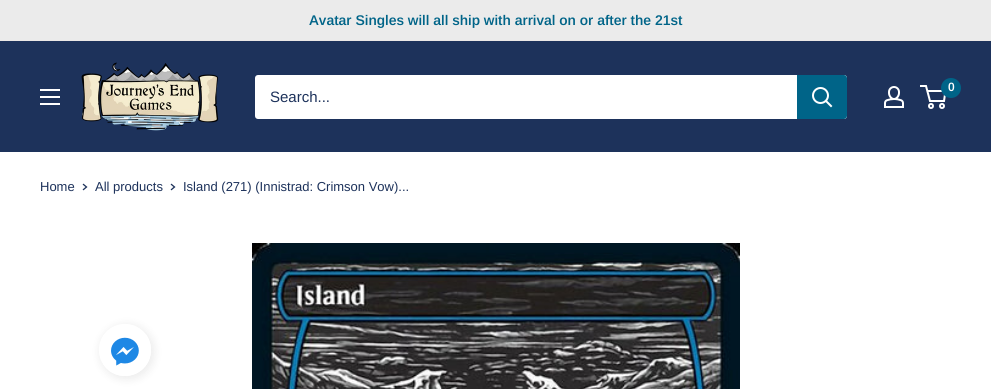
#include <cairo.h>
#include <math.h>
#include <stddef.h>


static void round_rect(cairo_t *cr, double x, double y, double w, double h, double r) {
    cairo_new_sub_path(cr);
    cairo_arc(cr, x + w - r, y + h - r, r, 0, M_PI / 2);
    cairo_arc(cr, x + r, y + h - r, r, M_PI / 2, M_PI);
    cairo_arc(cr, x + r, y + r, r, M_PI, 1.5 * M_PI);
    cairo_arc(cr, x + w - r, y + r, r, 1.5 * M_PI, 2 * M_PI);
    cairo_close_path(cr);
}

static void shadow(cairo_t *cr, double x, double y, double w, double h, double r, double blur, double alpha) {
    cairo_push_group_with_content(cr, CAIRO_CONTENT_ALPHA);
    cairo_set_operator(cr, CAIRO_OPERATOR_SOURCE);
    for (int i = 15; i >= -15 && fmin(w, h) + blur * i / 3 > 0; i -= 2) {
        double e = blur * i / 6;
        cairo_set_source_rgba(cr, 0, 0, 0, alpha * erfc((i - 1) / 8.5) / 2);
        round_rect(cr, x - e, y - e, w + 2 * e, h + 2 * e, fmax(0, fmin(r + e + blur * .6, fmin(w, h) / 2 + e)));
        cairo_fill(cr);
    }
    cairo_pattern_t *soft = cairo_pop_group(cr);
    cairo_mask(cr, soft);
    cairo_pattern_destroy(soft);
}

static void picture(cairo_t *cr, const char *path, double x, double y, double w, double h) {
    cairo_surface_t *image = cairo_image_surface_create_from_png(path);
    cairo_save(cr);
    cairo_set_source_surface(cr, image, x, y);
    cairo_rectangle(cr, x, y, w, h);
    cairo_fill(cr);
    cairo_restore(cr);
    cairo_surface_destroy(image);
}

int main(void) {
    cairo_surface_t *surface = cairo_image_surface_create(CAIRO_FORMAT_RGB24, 991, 389);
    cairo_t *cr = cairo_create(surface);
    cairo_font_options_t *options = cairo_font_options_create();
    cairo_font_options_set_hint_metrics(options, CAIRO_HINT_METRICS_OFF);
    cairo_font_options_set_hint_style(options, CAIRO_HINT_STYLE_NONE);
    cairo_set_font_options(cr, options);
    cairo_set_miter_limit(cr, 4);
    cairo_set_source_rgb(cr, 1, 1, 1);
    cairo_paint(cr);
    cairo_set_source_rgb(cr, 0.918, 0.918, 0.918);
    cairo_rectangle(cr, 0, 0, 991, 40);
    cairo_fill(cr);
    cairo_set_source_rgb(cr, 0.918, 0.91, 0.902);
    cairo_rectangle(cr, 0, 40, 991, 1);
    cairo_fill(cr);
    cairo_select_font_face(cr, "Arimo SemiBold", CAIRO_FONT_SLANT_NORMAL, CAIRO_FONT_WEIGHT_NORMAL);
    cairo_set_font_size(cr, 14);
    cairo_set_source_rgb(cr, 0, 0.392, 0.533);
    cairo_move_to(cr, 309, 25);
    cairo_show_text(cr, "Avatar Singles will all ship with arrival on or after the 21st");
    cairo_set_source_rgb(cr, 0.114, 0.196, 0.357);
    cairo_rectangle(cr, 0, 41, 991, 111);
    cairo_fill(cr);
    picture(cr, "img1.png", 81, 62, 138, 69);
    picture(cr, "img2.png", 884, 86, 20, 22);
    cairo_arc(cr, 931, 106, 2, 0, 2 * M_PI);
    cairo_set_source_rgb(cr, 1, 1, 1);
    cairo_stroke(cr);
    cairo_arc(cr, 942, 106, 2, 0, 2 * M_PI);
    cairo_stroke(cr);
    cairo_new_path(cr);
    cairo_move_to(cr, 927.5, 91);
    cairo_line_to(cr, 945.5, 91);
    cairo_line_to(cr, 944, 101);
    cairo_line_to(cr, 930, 101);
    cairo_line_to(cr, 926, 86);
    cairo_line_to(cr, 920, 86);
    cairo_stroke(cr);
    cairo_set_source_rgb(cr, 0, 0.392, 0.533);
    cairo_arc(cr, 951, 88, 10, 0, 2 * M_PI);
    cairo_fill(cr);
    cairo_set_font_size(cr, 12);
    cairo_set_source_rgb(cr, 1, 1, 1);
    cairo_move_to(cr, 948, 91);
    cairo_show_text(cr, "0");
    picture(cr, "img3.png", 40, 89, 20, 16);
    round_rect(cr, 255, 75, 592, 44, 3);
    cairo_fill(cr);
    cairo_select_font_face(cr, "Arimo", CAIRO_FONT_SLANT_NORMAL, CAIRO_FONT_WEIGHT_NORMAL);
    cairo_set_font_size(cr, 15);
    cairo_set_source_rgb(cr, 0.114, 0.196, 0.357);
    cairo_move_to(cr, 270, 102);
    cairo_show_text(cr, "Search...");
    cairo_set_source_rgb(cr, 0, 0.392, 0.533);
    cairo_new_path(cr);
    cairo_move_to(cr, 797, 75);
    cairo_line_to(cr, 844, 75);
    cairo_curve_to(cr, 845.5, 75, 847, 76.5, 847, 78);
    cairo_line_to(cr, 847, 116);
    cairo_curve_to(cr, 847, 117.5, 845.5, 119, 844, 119);
    cairo_line_to(cr, 797, 119);
    cairo_close_path(cr);
    cairo_fill(cr);
    cairo_new_path(cr);
    cairo_move_to(cr, 831, 106);
    cairo_line_to(cr, 826, 101);
    cairo_set_source_rgb(cr, 1, 1, 1);
    cairo_set_line_cap(cr, CAIRO_LINE_CAP_SQUARE);
    cairo_stroke(cr);
    cairo_arc(cr, 820.5, 95.5, 7.5, 0, 2 * M_PI);
    cairo_set_line_cap(cr, CAIRO_LINE_CAP_BUTT);
    cairo_stroke(cr);
    cairo_set_font_size(cr, 13);
    cairo_set_source_rgb(cr, 0.114, 0.196, 0.357);
    cairo_move_to(cr, 40, 191);
    cairo_show_text(cr, "Home");
    cairo_new_path(cr);
    cairo_move_to(cr, 83.5, 184.5);
    cairo_line_to(cr, 86.5, 187);
    cairo_line_to(cr, 83.5, 189.5);
    cairo_set_line_width(cr, 1.3);
    cairo_set_line_cap(cr, CAIRO_LINE_CAP_SQUARE);
    cairo_stroke(cr);
    cairo_move_to(cr, 95, 191);
    cairo_show_text(cr, "All products");
    cairo_new_path(cr);
    cairo_move_to(cr, 171.5, 184.5);
    cairo_line_to(cr, 174.5, 187);
    cairo_line_to(cr, 171.5, 189.5);
    cairo_stroke(cr);
    cairo_move_to(cr, 183, 191);
    cairo_show_text(cr, "Island (271) (Innistrad: Crimson Vow)...");
    picture(cr, "img4.png", 252, 243, 488, 146);
    cairo_save(cr);
    cairo_set_fill_rule(cr, CAIRO_FILL_RULE_EVEN_ODD);
    cairo_new_path(cr);
    cairo_move_to(cr, 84, 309);
    cairo_line_to(cr, 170, 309);
    cairo_line_to(cr, 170, 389);
    cairo_line_to(cr, 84, 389);
    cairo_close_path(cr);
    cairo_move_to(cr, 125, 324);
    cairo_curve_to(cr, 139.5, 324, 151, 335.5, 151, 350);
    cairo_curve_to(cr, 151, 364.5, 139.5, 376, 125, 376);
    cairo_curve_to(cr, 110.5, 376, 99, 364.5, 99, 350);
    cairo_curve_to(cr, 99, 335.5, 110.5, 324, 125, 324);
    cairo_close_path(cr);
    cairo_clip(cr);
    cairo_set_source_rgb(cr, 0, 0, 0);
    shadow(cr, 99, 324, 56, 56, 28, 4.5, 0.07);
    cairo_restore(cr);
    picture(cr, "img5.png", 103, 335, 48, 41);
    cairo_surface_write_to_png(surface, "page.png");
    cairo_font_options_destroy(options);
    cairo_destroy(cr);
    cairo_surface_destroy(surface);
    return 0;
}
